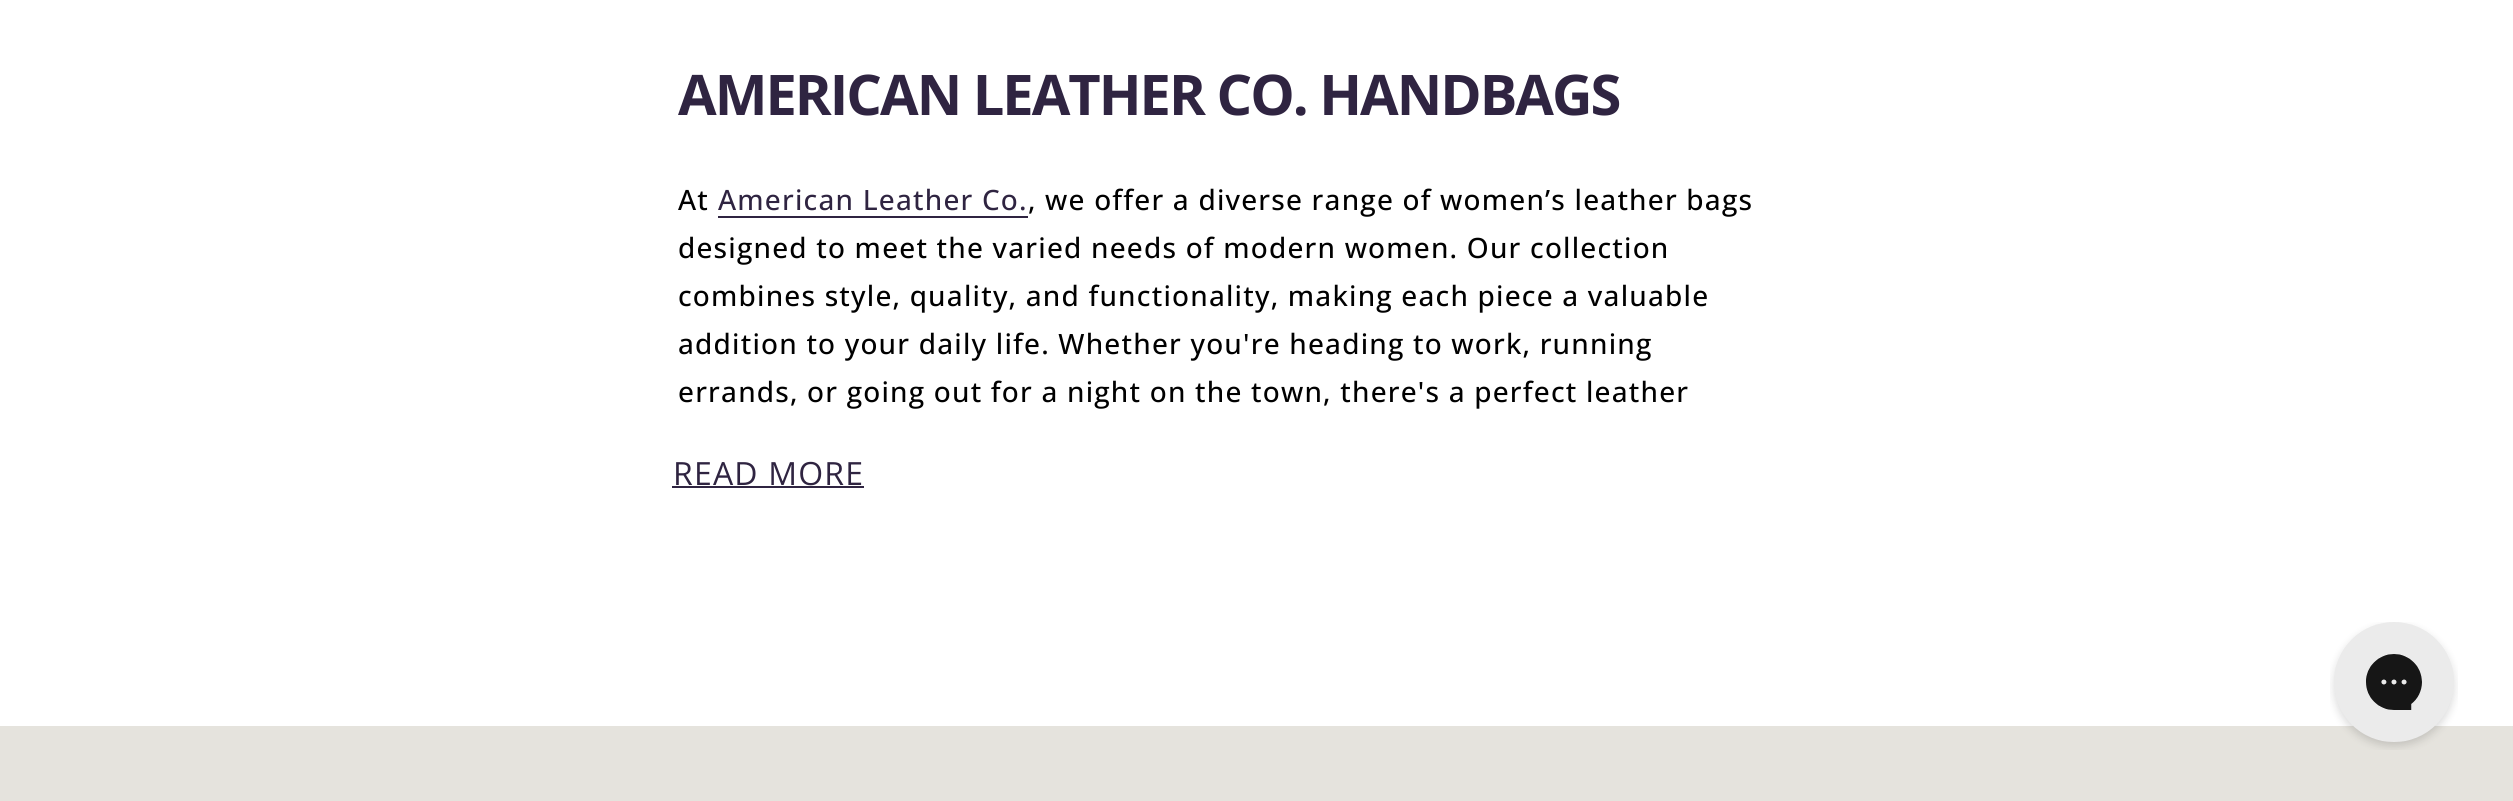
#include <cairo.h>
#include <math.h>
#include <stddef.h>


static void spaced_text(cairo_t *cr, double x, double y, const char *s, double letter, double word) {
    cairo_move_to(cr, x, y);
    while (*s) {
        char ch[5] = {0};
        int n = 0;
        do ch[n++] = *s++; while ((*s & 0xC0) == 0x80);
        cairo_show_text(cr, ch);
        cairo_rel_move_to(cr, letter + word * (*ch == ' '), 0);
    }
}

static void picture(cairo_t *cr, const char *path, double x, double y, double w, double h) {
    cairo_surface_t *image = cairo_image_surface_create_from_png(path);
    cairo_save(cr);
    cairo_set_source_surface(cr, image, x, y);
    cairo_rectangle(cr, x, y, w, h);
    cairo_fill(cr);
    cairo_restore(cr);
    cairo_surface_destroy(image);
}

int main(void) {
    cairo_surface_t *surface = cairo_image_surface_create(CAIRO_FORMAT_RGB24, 2513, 801);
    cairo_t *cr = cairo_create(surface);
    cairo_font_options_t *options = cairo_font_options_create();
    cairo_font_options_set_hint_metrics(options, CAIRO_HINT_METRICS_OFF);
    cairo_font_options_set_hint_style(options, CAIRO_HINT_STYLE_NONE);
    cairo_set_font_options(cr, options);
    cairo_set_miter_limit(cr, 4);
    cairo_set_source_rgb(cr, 1, 1, 1);
    cairo_paint(cr);
    cairo_select_font_face(cr, "Open Sans", CAIRO_FONT_SLANT_NORMAL, CAIRO_FONT_WEIGHT_BOLD);
    cairo_set_font_size(cr, 56);
    cairo_set_source_rgb(cr, 0.184, 0.141, 0.255);
    spaced_text(cr, 678, 115, "AMERICAN LEATHER CO. HANDBAGS", -2, 0);
    cairo_select_font_face(cr, "Open Sans Medium", CAIRO_FONT_SLANT_NORMAL, CAIRO_FONT_WEIGHT_NORMAL);
    cairo_set_font_size(cr, 28);
    cairo_set_source_rgb(cr, 0, 0, 0);
    spaced_text(cr, 678, 210, "At", 1.2, 0);
    cairo_set_source_rgb(cr, 0.184, 0.141, 0.255);
    spaced_text(cr, 718, 210, "American Leather Co.", 1.2, 0);
    cairo_rectangle(cr, 718, 216, 310, 2);
    cairo_fill(cr);
    cairo_set_source_rgb(cr, 0, 0, 0);
    spaced_text(cr, 1028, 210, ", we offer a diverse range of women’s leather bags", 1.2, 0);
    spaced_text(cr, 678, 258, "designed to meet the varied needs of modern women. Our collection", 1.2, 0);
    spaced_text(cr, 678, 306, "combines style, quality, and functionality, making each piece a valuable", 1.2, 0);
    spaced_text(cr, 678, 354, "addition to your daily life. Whether you're heading to work, running", 1.2, 0);
    spaced_text(cr, 678, 402, "errands, or going out for a night on the town, there's a perfect leather", 1.2, 0);
    cairo_select_font_face(cr, "Open Sans", CAIRO_FONT_SLANT_NORMAL, CAIRO_FONT_WEIGHT_NORMAL);
    cairo_set_font_size(cr, 32);
    cairo_set_source_rgb(cr, 0.184, 0.141, 0.255);
    spaced_text(cr, 673, 485, "READ MORE", 1.2, 0);
    cairo_rectangle(cr, 672, 486, 192, 2);
    cairo_fill(cr);
    cairo_set_source_rgb(cr, 0.898, 0.89, 0.867);
    cairo_rectangle(cr, 0, 726, 2513, 75);
    cairo_fill(cr);
    picture(cr, "img1.png", 2330, 622, 128, 128);
    cairo_surface_write_to_png(surface, "page.png");
    cairo_font_options_destroy(options);
    cairo_destroy(cr);
    cairo_surface_destroy(surface);
    return 0;
}
